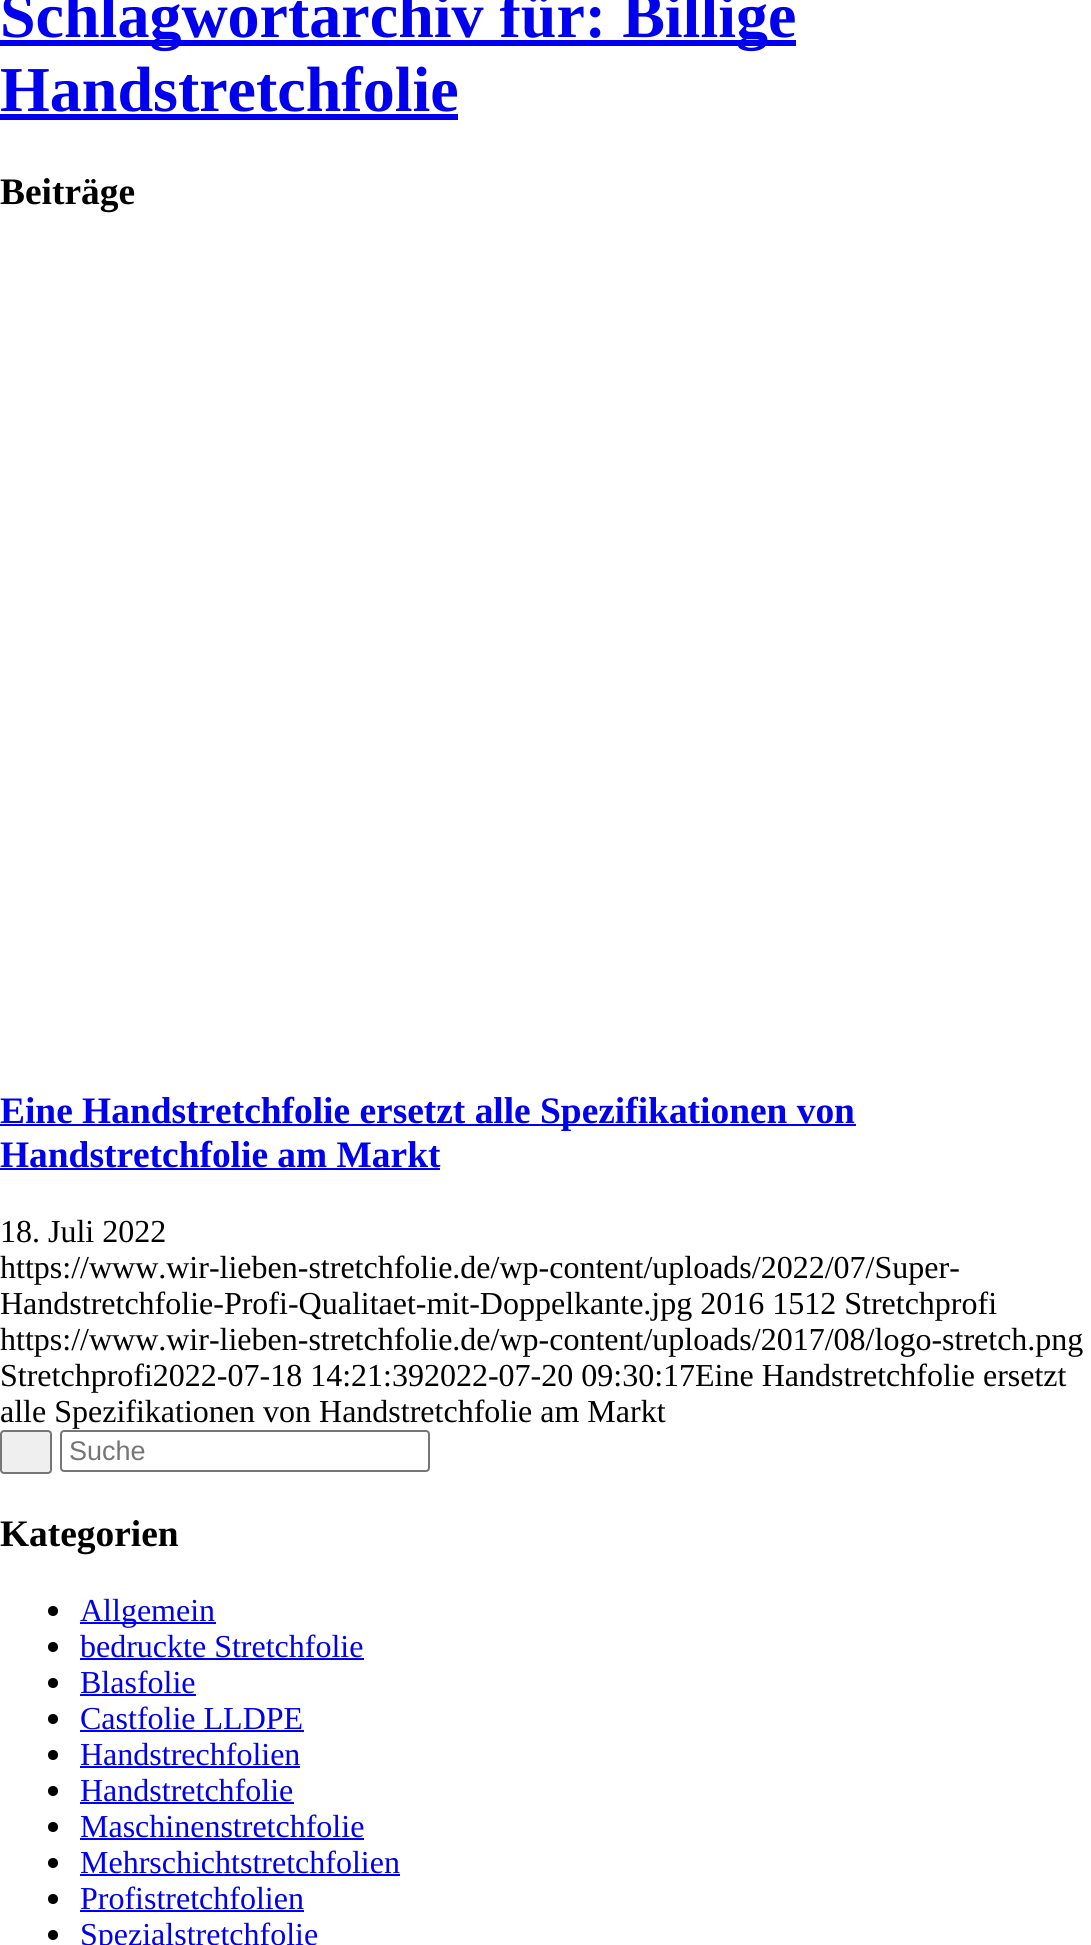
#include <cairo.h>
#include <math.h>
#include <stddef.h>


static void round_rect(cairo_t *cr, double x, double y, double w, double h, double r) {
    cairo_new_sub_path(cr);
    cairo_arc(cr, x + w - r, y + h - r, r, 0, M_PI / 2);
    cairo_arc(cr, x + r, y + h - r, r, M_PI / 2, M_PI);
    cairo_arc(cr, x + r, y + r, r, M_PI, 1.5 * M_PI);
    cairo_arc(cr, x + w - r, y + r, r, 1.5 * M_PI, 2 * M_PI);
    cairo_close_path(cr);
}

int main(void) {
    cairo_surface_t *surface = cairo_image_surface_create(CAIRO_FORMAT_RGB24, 1091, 1945);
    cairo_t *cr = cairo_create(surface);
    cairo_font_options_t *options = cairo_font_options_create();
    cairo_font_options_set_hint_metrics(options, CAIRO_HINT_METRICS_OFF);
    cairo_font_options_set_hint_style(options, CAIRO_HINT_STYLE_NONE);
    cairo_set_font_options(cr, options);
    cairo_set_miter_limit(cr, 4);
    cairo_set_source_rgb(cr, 1, 1, 1);
    cairo_paint(cr);
    cairo_set_source_rgb(cr, 0, 0, 0.933);
    cairo_rectangle(cr, 0, 40, 796, 6);
    cairo_fill(cr);
    cairo_select_font_face(cr, "Liberation Serif", CAIRO_FONT_SLANT_NORMAL, CAIRO_FONT_WEIGHT_BOLD);
    cairo_set_font_size(cr, 64);
    cairo_move_to(cr, 0, 37);
    cairo_show_text(cr, "Schlagwortarchiv für: Billige");
    cairo_move_to(cr, 0, 111);
    cairo_show_text(cr, "Handstretchfolie");
    cairo_rectangle(cr, 0, 114, 458, 6);
    cairo_fill(cr);
    cairo_set_font_size(cr, 37.4);
    cairo_set_source_rgb(cr, 0, 0, 0);
    cairo_move_to(cr, 0, 204);
    cairo_show_text(cr, "Beiträge");
    cairo_set_source_rgb(cr, 0, 0, 0.933);
    cairo_rectangle(cr, 0, 1124, 856, 2);
    cairo_fill(cr);
    cairo_move_to(cr, 0, 1123);
    cairo_show_text(cr, "Eine Handstretchfolie ersetzt alle Spezifikationen von");
    cairo_move_to(cr, 0, 1167);
    cairo_show_text(cr, "Handstretchfolie am Markt");
    cairo_rectangle(cr, 0, 1168, 440, 2);
    cairo_fill(cr);
    cairo_select_font_face(cr, "Liberation Serif", CAIRO_FONT_SLANT_NORMAL, CAIRO_FONT_WEIGHT_NORMAL);
    cairo_set_font_size(cr, 32);
    cairo_set_source_rgb(cr, 0, 0, 0);
    cairo_move_to(cr, 0, 1242);
    cairo_show_text(cr, "18. Juli 2022");
    cairo_move_to(cr, 0, 1278);
    cairo_show_text(cr, "https://www.wir-lieben-stretchfolie.de/wp-content/uploads/2022/07/Super-");
    cairo_move_to(cr, 0, 1314);
    cairo_show_text(cr, "Handstretchfolie-Profi-Qualitaet-mit-Doppelkante.jpg 2016 1512 Stretchprofi");
    cairo_move_to(cr, 0, 1350);
    cairo_show_text(cr, "https://www.wir-lieben-stretchfolie.de/wp-content/uploads/2017/08/logo-stretch.png");
    cairo_move_to(cr, 0, 1386);
    cairo_show_text(cr, "Stretchprofi2022-07-18 14:21:392022-07-20 09:30:17Eine Handstretchfolie ersetzt");
    cairo_move_to(cr, 0, 1422);
    cairo_show_text(cr, "alle Spezifikationen von Handstretchfolie am Markt");
    cairo_set_source_rgb(cr, 0.937, 0.937, 0.937);
    round_rect(cr, 1, 1431, 50, 42, 3);
    cairo_fill_preserve(cr);
    cairo_set_source_rgb(cr, 0.463, 0.463, 0.463);
    cairo_stroke(cr);
    round_rect(cr, 61, 1431, 368, 40, 3);
    cairo_stroke(cr);
    cairo_select_font_face(cr, "Liberation Sans", CAIRO_FONT_SLANT_NORMAL, CAIRO_FONT_WEIGHT_NORMAL);
    cairo_set_font_size(cr, 27);
    cairo_set_source_rgb(cr, 0.459, 0.459, 0.459);
    cairo_move_to(cr, 69, 1460);
    cairo_show_text(cr, "Suche");
    cairo_select_font_face(cr, "Liberation Serif", CAIRO_FONT_SLANT_NORMAL, CAIRO_FONT_WEIGHT_BOLD);
    cairo_set_font_size(cr, 37.4);
    cairo_set_source_rgb(cr, 0, 0, 0);
    cairo_move_to(cr, 0, 1546);
    cairo_show_text(cr, "Kategorien");
    cairo_new_path(cr);
    cairo_arc(cr, 53, 1611, 5, 0, 2 * M_PI);
    cairo_fill(cr);
    cairo_set_source_rgb(cr, 0, 0, 0.933);
    cairo_rectangle(cr, 80, 1622, 136, 2);
    cairo_fill(cr);
    cairo_select_font_face(cr, "Liberation Serif", CAIRO_FONT_SLANT_NORMAL, CAIRO_FONT_WEIGHT_NORMAL);
    cairo_set_font_size(cr, 32);
    cairo_move_to(cr, 80, 1621);
    cairo_show_text(cr, "Allgemein");
    cairo_set_source_rgb(cr, 0, 0, 0);
    cairo_new_path(cr);
    cairo_arc(cr, 53, 1647, 5, 0, 2 * M_PI);
    cairo_fill(cr);
    cairo_set_source_rgb(cr, 0, 0, 0.933);
    cairo_move_to(cr, 80, 1657);
    cairo_show_text(cr, "bedruckte Stretchfolie");
    cairo_rectangle(cr, 80, 1658, 284, 2);
    cairo_fill(cr);
    cairo_set_source_rgb(cr, 0, 0, 0);
    cairo_arc(cr, 53, 1683, 5, 0, 2 * M_PI);
    cairo_fill(cr);
    cairo_set_source_rgb(cr, 0, 0, 0.933);
    cairo_move_to(cr, 80, 1693);
    cairo_show_text(cr, "Blasfolie");
    cairo_rectangle(cr, 80, 1694, 116, 2);
    cairo_fill(cr);
    cairo_set_source_rgb(cr, 0, 0, 0);
    cairo_arc(cr, 53, 1719, 5, 0, 2 * M_PI);
    cairo_fill(cr);
    cairo_set_source_rgb(cr, 0, 0, 0.933);
    cairo_move_to(cr, 80, 1729);
    cairo_show_text(cr, "Castfolie LLDPE");
    cairo_rectangle(cr, 80, 1730, 224, 2);
    cairo_fill(cr);
    cairo_set_source_rgb(cr, 0, 0, 0);
    cairo_arc(cr, 53, 1755, 5, 0, 2 * M_PI);
    cairo_fill(cr);
    cairo_set_source_rgb(cr, 0, 0, 0.933);
    cairo_move_to(cr, 80, 1765);
    cairo_show_text(cr, "Handstrechfolien");
    cairo_rectangle(cr, 80, 1766, 220, 2);
    cairo_fill(cr);
    cairo_set_source_rgb(cr, 0, 0, 0);
    cairo_arc(cr, 53, 1791, 5, 0, 2 * M_PI);
    cairo_fill(cr);
    cairo_set_source_rgb(cr, 0, 0, 0.933);
    cairo_move_to(cr, 80, 1801);
    cairo_show_text(cr, "Handstretchfolie");
    cairo_rectangle(cr, 80, 1802, 214, 2);
    cairo_fill(cr);
    cairo_set_source_rgb(cr, 0, 0, 0);
    cairo_arc(cr, 53, 1827, 5, 0, 2 * M_PI);
    cairo_fill(cr);
    cairo_set_source_rgb(cr, 0, 0, 0.933);
    cairo_move_to(cr, 80, 1837);
    cairo_show_text(cr, "Maschinenstretchfolie");
    cairo_rectangle(cr, 80, 1838, 284, 2);
    cairo_fill(cr);
    cairo_set_source_rgb(cr, 0, 0, 0);
    cairo_arc(cr, 53, 1863, 5, 0, 2 * M_PI);
    cairo_fill(cr);
    cairo_set_source_rgb(cr, 0, 0, 0.933);
    cairo_move_to(cr, 80, 1873);
    cairo_show_text(cr, "Mehrschichtstretchfolien");
    cairo_rectangle(cr, 80, 1874, 320, 2);
    cairo_fill(cr);
    cairo_set_source_rgb(cr, 0, 0, 0);
    cairo_arc(cr, 53, 1899, 5, 0, 2 * M_PI);
    cairo_fill(cr);
    cairo_set_source_rgb(cr, 0, 0, 0.933);
    cairo_move_to(cr, 80, 1909);
    cairo_show_text(cr, "Profistretchfolien");
    cairo_rectangle(cr, 80, 1910, 224, 2);
    cairo_fill(cr);
    cairo_set_source_rgb(cr, 0, 0, 0);
    cairo_arc(cr, 53, 1935, 5, 0, 2 * M_PI);
    cairo_fill(cr);
    cairo_set_source_rgb(cr, 0, 0, 0.933);
    cairo_move_to(cr, 80, 1945);
    cairo_show_text(cr, "Spezialstretchfolie");
    cairo_surface_write_to_png(surface, "page.png");
    cairo_font_options_destroy(options);
    cairo_destroy(cr);
    cairo_surface_destroy(surface);
    return 0;
}
